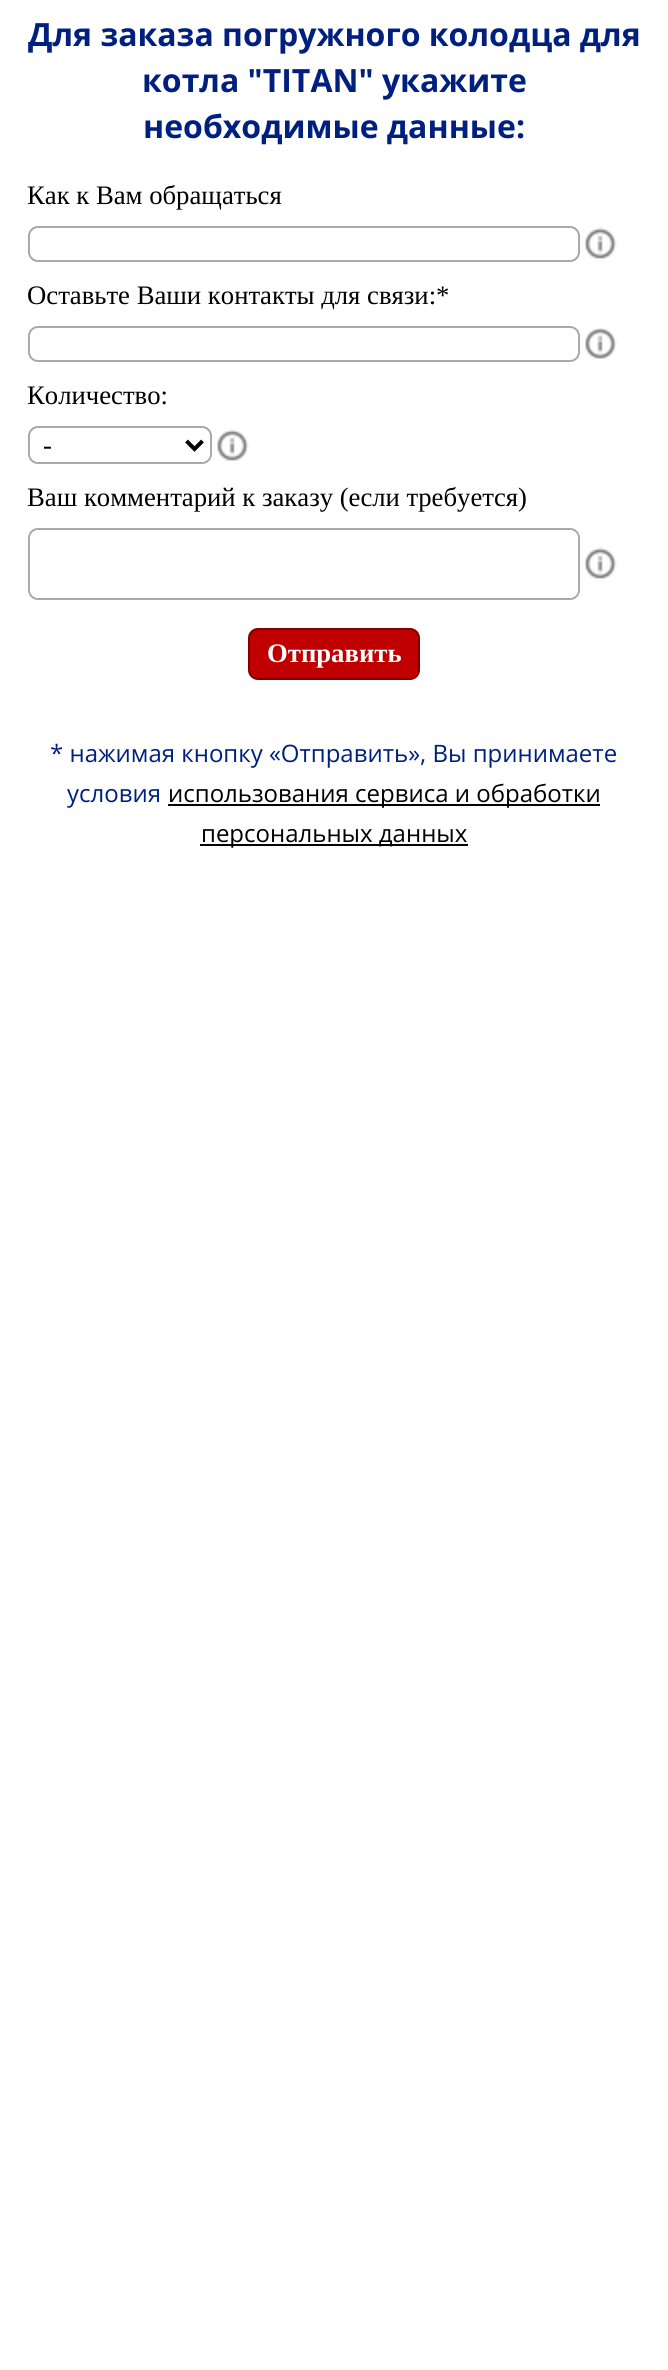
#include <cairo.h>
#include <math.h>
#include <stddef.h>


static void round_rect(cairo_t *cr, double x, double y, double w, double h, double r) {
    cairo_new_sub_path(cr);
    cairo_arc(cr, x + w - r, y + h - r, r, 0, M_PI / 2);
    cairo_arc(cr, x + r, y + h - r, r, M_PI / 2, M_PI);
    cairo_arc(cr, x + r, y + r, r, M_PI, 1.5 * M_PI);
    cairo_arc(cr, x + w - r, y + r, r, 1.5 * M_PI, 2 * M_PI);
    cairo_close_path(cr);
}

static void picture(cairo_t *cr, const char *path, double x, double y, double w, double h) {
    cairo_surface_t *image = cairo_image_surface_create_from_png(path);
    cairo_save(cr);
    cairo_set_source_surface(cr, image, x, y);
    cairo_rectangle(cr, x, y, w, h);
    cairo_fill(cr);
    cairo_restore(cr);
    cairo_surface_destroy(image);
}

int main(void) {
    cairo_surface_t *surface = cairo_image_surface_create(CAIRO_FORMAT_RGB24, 668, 2370);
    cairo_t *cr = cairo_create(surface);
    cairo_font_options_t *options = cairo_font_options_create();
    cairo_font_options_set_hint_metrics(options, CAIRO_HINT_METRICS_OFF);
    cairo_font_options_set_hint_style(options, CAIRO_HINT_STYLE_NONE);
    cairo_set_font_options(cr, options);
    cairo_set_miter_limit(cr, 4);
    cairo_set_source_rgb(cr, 1, 1, 1);
    cairo_paint(cr);
    cairo_select_font_face(cr, "Open Sans", CAIRO_FONT_SLANT_NORMAL, CAIRO_FONT_WEIGHT_BOLD);
    cairo_set_font_size(cr, 32);
    cairo_set_source_rgb(cr, 0, 0.125, 0.502);
    cairo_move_to(cr, 28, 46);
    cairo_show_text(cr, "Для заказа погружного колодца для");
    cairo_move_to(cr, 142, 92);
    cairo_show_text(cr, "котла \"TITAN\" укажите");
    cairo_move_to(cr, 143, 138);
    cairo_show_text(cr, "необходимые данные:");
    cairo_select_font_face(cr, "Liberation Serif", CAIRO_FONT_SLANT_NORMAL, CAIRO_FONT_WEIGHT_NORMAL);
    cairo_set_font_size(cr, 26.7);
    cairo_set_source_rgb(cr, 0, 0, 0);
    cairo_move_to(cr, 27, 204);
    cairo_show_text(cr, "Как к Вам обращаться");
    round_rect(cr, 29, 227, 550, 34, 9);
    cairo_set_source_rgb(cr, 0.663, 0.663, 0.663);
    cairo_stroke(cr);
    picture(cr, "img1.png", 584, 227, 33, 33);
    cairo_set_source_rgb(cr, 0, 0, 0);
    cairo_move_to(cr, 27, 304);
    cairo_show_text(cr, "Оставьте Ваши контакты для связи:*");
    round_rect(cr, 29, 327, 550, 34, 9);
    cairo_set_source_rgb(cr, 0.663, 0.663, 0.663);
    cairo_stroke(cr);
    picture(cr, "img1.png", 584, 327, 33, 33);
    cairo_set_source_rgb(cr, 0, 0, 0);
    cairo_move_to(cr, 27, 404);
    cairo_show_text(cr, "Количество:");
    round_rect(cr, 29, 427, 182, 36, 9);
    cairo_set_source_rgb(cr, 0.663, 0.663, 0.663);
    cairo_stroke(cr);
    cairo_new_path(cr);
    cairo_move_to(cr, 186.5, 441);
    cairo_line_to(cr, 194.5, 449);
    cairo_line_to(cr, 202.5, 441);
    cairo_set_source_rgb(cr, 0, 0, 0);
    cairo_set_line_width(cr, 4);
    cairo_stroke(cr);
    cairo_move_to(cr, 43, 454);
    cairo_show_text(cr, "-");
    picture(cr, "img1.png", 216, 429, 33, 33);
    cairo_move_to(cr, 27, 506);
    cairo_show_text(cr, "Ваш комментарий к заказу (если требуется)");
    round_rect(cr, 29, 529, 550, 70, 9);
    cairo_set_source_rgb(cr, 0.663, 0.663, 0.663);
    cairo_set_line_width(cr, 2);
    cairo_stroke(cr);
    picture(cr, "img1.png", 584, 547, 33, 33);
    cairo_set_source_rgb(cr, 0.753, 0, 0);
    round_rect(cr, 249, 629, 170, 50, 9);
    cairo_fill_preserve(cr);
    cairo_set_source_rgb(cr, 0.502, 0, 0);
    cairo_stroke(cr);
    cairo_select_font_face(cr, "Liberation Serif", CAIRO_FONT_SLANT_NORMAL, CAIRO_FONT_WEIGHT_BOLD);
    cairo_set_source_rgb(cr, 1, 1, 1);
    cairo_move_to(cr, 267, 662);
    cairo_show_text(cr, "Отправить");
    cairo_select_font_face(cr, "Open Sans", CAIRO_FONT_SLANT_NORMAL, CAIRO_FONT_WEIGHT_NORMAL);
    cairo_set_font_size(cr, 24);
    cairo_set_source_rgb(cr, 0, 0.125, 0.502);
    cairo_move_to(cr, 50, 762);
    cairo_show_text(cr, "* нажимая кнопку «Отправить», Вы принимаете");
    cairo_move_to(cr, 67, 802);
    cairo_show_text(cr, "условия");
    cairo_set_source_rgb(cr, 0, 0, 0);
    cairo_rectangle(cr, 168, 804, 432, 2);
    cairo_fill(cr);
    cairo_move_to(cr, 168, 802);
    cairo_show_text(cr, "использования сервиса и обработки");
    cairo_rectangle(cr, 200, 844, 268, 2);
    cairo_fill(cr);
    cairo_move_to(cr, 201, 842);
    cairo_show_text(cr, "персональных данных");
    cairo_surface_write_to_png(surface, "page.png");
    cairo_font_options_destroy(options);
    cairo_destroy(cr);
    cairo_surface_destroy(surface);
    return 0;
}
